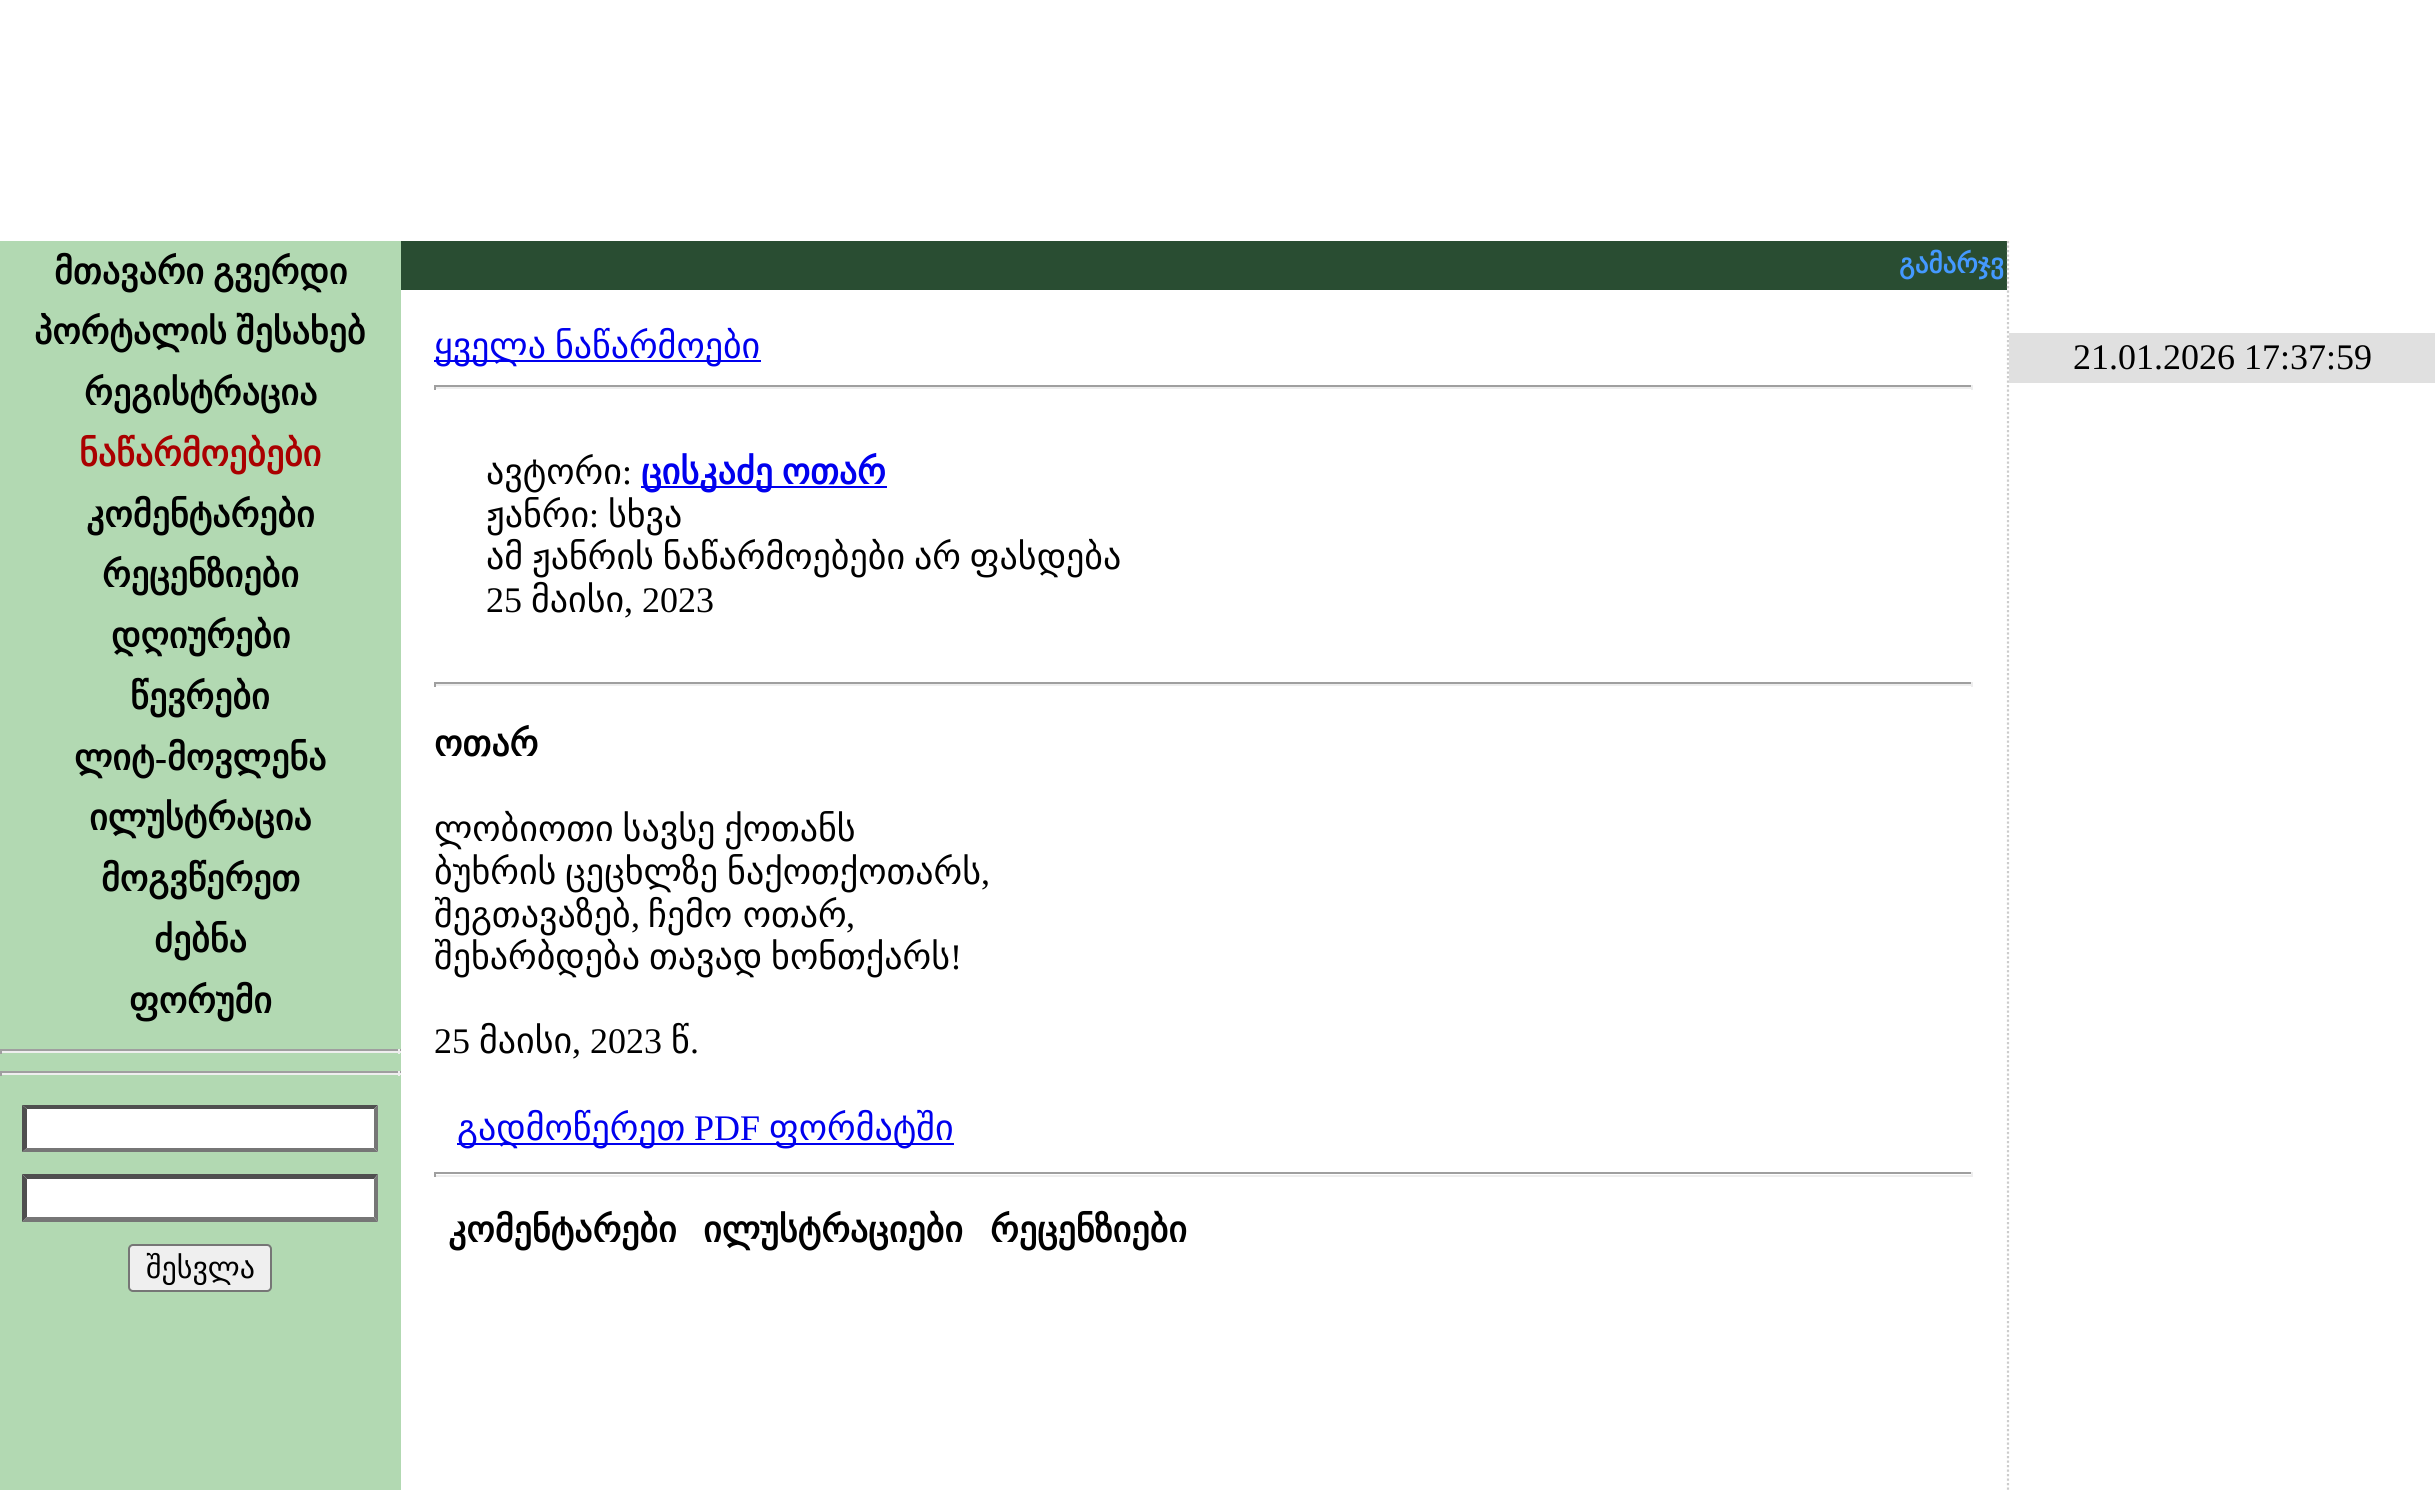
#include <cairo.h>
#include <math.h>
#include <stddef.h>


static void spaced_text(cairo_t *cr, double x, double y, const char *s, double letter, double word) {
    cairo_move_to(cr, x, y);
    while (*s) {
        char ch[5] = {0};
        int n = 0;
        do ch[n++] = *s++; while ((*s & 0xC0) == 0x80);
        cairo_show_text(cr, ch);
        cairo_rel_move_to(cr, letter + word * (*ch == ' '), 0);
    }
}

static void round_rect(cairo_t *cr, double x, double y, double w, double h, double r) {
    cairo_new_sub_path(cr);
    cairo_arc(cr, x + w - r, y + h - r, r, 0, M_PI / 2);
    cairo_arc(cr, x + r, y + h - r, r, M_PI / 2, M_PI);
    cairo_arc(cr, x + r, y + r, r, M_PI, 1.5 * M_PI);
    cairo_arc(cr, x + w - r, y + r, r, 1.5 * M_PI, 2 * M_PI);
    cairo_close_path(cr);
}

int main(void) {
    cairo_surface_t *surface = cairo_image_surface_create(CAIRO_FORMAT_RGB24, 2435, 1490);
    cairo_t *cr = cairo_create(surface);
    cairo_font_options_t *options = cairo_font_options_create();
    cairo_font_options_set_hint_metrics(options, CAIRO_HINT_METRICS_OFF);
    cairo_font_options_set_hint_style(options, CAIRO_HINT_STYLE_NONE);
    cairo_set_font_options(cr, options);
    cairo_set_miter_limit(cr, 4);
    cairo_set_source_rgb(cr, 1, 1, 1);
    cairo_paint(cr);
    cairo_set_source_rgb(cr, 0.698, 0.851, 0.698);
    cairo_rectangle(cr, 0, 241, 401, 1249);
    cairo_fill(cr);
    cairo_select_font_face(cr, "DejaVu Sans", CAIRO_FONT_SLANT_NORMAL, CAIRO_FONT_WEIGHT_BOLD);
    cairo_set_font_size(cr, 36);
    cairo_set_source_rgb(cr, 0, 0, 0);
    spaced_text(cr, 54, 284, "მთავარი გვერდი", 0, -2.5);
    spaced_text(cr, 34, 344, "პორტალის შესახებ", 0, -2.5);
    cairo_move_to(cr, 84, 405);
    cairo_show_text(cr, "რეგისტრაცია");
    cairo_set_source_rgb(cr, 0.667, 0, 0);
    cairo_move_to(cr, 79, 466);
    cairo_show_text(cr, "ნაწარმოებები");
    cairo_set_source_rgb(cr, 0, 0, 0);
    cairo_move_to(cr, 86, 527);
    cairo_show_text(cr, "კომენტარები");
    cairo_move_to(cr, 102, 587);
    cairo_show_text(cr, "რეცენზიები");
    cairo_move_to(cr, 111, 648);
    cairo_show_text(cr, "დღიურები");
    cairo_move_to(cr, 130, 709);
    cairo_show_text(cr, "წევრები");
    cairo_move_to(cr, 74, 770);
    cairo_show_text(cr, "ლიტ");
    cairo_select_font_face(cr, "Liberation Serif", CAIRO_FONT_SLANT_NORMAL, CAIRO_FONT_WEIGHT_BOLD);
    cairo_move_to(cr, 155, 770);
    cairo_show_text(cr, "-");
    cairo_select_font_face(cr, "DejaVu Sans", CAIRO_FONT_SLANT_NORMAL, CAIRO_FONT_WEIGHT_BOLD);
    cairo_move_to(cr, 167, 770);
    cairo_show_text(cr, "მოვლენა");
    cairo_move_to(cr, 89, 830);
    cairo_show_text(cr, "ილუსტრაცია");
    cairo_move_to(cr, 101, 891);
    cairo_show_text(cr, "მოგვწერეთ");
    cairo_move_to(cr, 154, 952);
    cairo_show_text(cr, "ძებნა");
    cairo_move_to(cr, 129, 1013);
    cairo_show_text(cr, "ფორუმი");
    cairo_set_source_rgb(cr, 0.624, 0.624, 0.624);
    cairo_rectangle(cr, 0, 1049, 401, 2);
    cairo_fill(cr);
    cairo_set_source_rgb(cr, 0.933, 0.933, 0.933);
    cairo_rectangle(cr, 398, 1049, 2, 5);
    cairo_fill(cr);
    cairo_rectangle(cr, 0, 1051, 401, 2);
    cairo_fill(cr);
    cairo_set_source_rgb(cr, 0.624, 0.624, 0.624);
    cairo_rectangle(cr, 0, 1049, 2, 5);
    cairo_fill(cr);
    cairo_rectangle(cr, 0, 1071, 401, 2);
    cairo_fill(cr);
    cairo_set_source_rgb(cr, 0.933, 0.933, 0.933);
    cairo_rectangle(cr, 398, 1071, 2, 5);
    cairo_fill(cr);
    cairo_rectangle(cr, 0, 1073, 401, 2);
    cairo_fill(cr);
    cairo_set_source_rgb(cr, 0.624, 0.624, 0.624);
    cairo_rectangle(cr, 0, 1071, 2, 5);
    cairo_fill(cr);
    cairo_set_source_rgb(cr, 1, 1, 1);
    cairo_rectangle(cr, 23, 1105, 355, 47);
    cairo_fill(cr);
    cairo_set_source_rgb(cr, 0.31, 0.31, 0.31);
    cairo_new_path(cr);
    cairo_move_to(cr, 22, 1105);
    cairo_line_to(cr, 378, 1105);
    cairo_line_to(cr, 374, 1109);
    cairo_line_to(cr, 27, 1109);
    cairo_close_path(cr);
    cairo_fill(cr);
    cairo_set_source_rgb(cr, 0.463, 0.463, 0.463);
    cairo_new_path(cr);
    cairo_move_to(cr, 378, 1105);
    cairo_line_to(cr, 378, 1152);
    cairo_line_to(cr, 374, 1148);
    cairo_line_to(cr, 374, 1109);
    cairo_close_path(cr);
    cairo_fill(cr);
    cairo_new_path(cr);
    cairo_move_to(cr, 378, 1152);
    cairo_line_to(cr, 22, 1152);
    cairo_line_to(cr, 27, 1148);
    cairo_line_to(cr, 374, 1148);
    cairo_close_path(cr);
    cairo_fill(cr);
    cairo_set_source_rgb(cr, 0.31, 0.31, 0.31);
    cairo_new_path(cr);
    cairo_move_to(cr, 22, 1152);
    cairo_line_to(cr, 22, 1105);
    cairo_line_to(cr, 27, 1109);
    cairo_line_to(cr, 27, 1148);
    cairo_close_path(cr);
    cairo_fill(cr);
    cairo_set_source_rgb(cr, 1, 1, 1);
    cairo_rectangle(cr, 23, 1175, 355, 47);
    cairo_fill(cr);
    cairo_set_source_rgb(cr, 0.31, 0.31, 0.31);
    cairo_new_path(cr);
    cairo_move_to(cr, 22, 1174);
    cairo_line_to(cr, 378, 1174);
    cairo_line_to(cr, 374, 1179);
    cairo_line_to(cr, 27, 1179);
    cairo_close_path(cr);
    cairo_fill(cr);
    cairo_set_source_rgb(cr, 0.463, 0.463, 0.463);
    cairo_new_path(cr);
    cairo_move_to(cr, 378, 1174);
    cairo_line_to(cr, 378, 1222);
    cairo_line_to(cr, 374, 1217);
    cairo_line_to(cr, 374, 1179);
    cairo_close_path(cr);
    cairo_fill(cr);
    cairo_new_path(cr);
    cairo_move_to(cr, 378, 1222);
    cairo_line_to(cr, 22, 1222);
    cairo_line_to(cr, 27, 1217);
    cairo_line_to(cr, 374, 1217);
    cairo_close_path(cr);
    cairo_fill(cr);
    cairo_set_source_rgb(cr, 0.31, 0.31, 0.31);
    cairo_new_path(cr);
    cairo_move_to(cr, 22, 1222);
    cairo_line_to(cr, 22, 1174);
    cairo_line_to(cr, 27, 1179);
    cairo_line_to(cr, 27, 1217);
    cairo_close_path(cr);
    cairo_fill(cr);
    cairo_set_source_rgb(cr, 0.937, 0.937, 0.937);
    round_rect(cr, 129, 1245, 142, 46, 4);
    cairo_fill_preserve(cr);
    cairo_set_source_rgb(cr, 0.463, 0.463, 0.463);
    cairo_stroke(cr);
    cairo_select_font_face(cr, "DejaVu Sans", CAIRO_FONT_SLANT_NORMAL, CAIRO_FONT_WEIGHT_NORMAL);
    cairo_set_font_size(cr, 30);
    cairo_set_source_rgb(cr, 0, 0, 0);
    cairo_move_to(cr, 146, 1278);
    cairo_show_text(cr, "შესვლა");
    cairo_set_source_rgb(cr, 0.161, 0.302, 0.196);
    cairo_rectangle(cr, 401, 241, 1606, 49);
    cairo_fill(cr);
    cairo_select_font_face(cr, "DejaVu Sans", CAIRO_FONT_SLANT_NORMAL, CAIRO_FONT_WEIGHT_BOLD);
    cairo_set_font_size(cr, 27);
    cairo_set_source_rgb(cr, 0.267, 0.6, 1);
    spaced_text(cr, 1899, 273, "გამარჯვ", 0, -2);
    cairo_set_source_rgb(cr, 0, 0, 0.933);
    cairo_rectangle(cr, 434, 360, 327, 2);
    cairo_fill(cr);
    cairo_select_font_face(cr, "DejaVu Sans", CAIRO_FONT_SLANT_NORMAL, CAIRO_FONT_WEIGHT_NORMAL);
    cairo_set_font_size(cr, 36);
    spaced_text(cr, 434, 358, "ყველა ნაწარმოები", 0, -2.5);
    cairo_set_source_rgb(cr, 0.624, 0.624, 0.624);
    cairo_rectangle(cr, 434, 385, 1539, 2);
    cairo_fill(cr);
    cairo_set_source_rgb(cr, 0.933, 0.933, 0.933);
    cairo_rectangle(cr, 1971, 385, 2, 5);
    cairo_fill(cr);
    cairo_rectangle(cr, 434, 387, 1539, 2);
    cairo_fill(cr);
    cairo_set_source_rgb(cr, 0.624, 0.624, 0.624);
    cairo_rectangle(cr, 434, 385, 2, 5);
    cairo_fill(cr);
    cairo_set_source_rgb(cr, 0, 0, 0);
    cairo_move_to(cr, 486, 484);
    cairo_show_text(cr, "ავტორი");
    cairo_select_font_face(cr, "Liberation Serif", CAIRO_FONT_SLANT_NORMAL, CAIRO_FONT_WEIGHT_NORMAL);
    cairo_move_to(cr, 622, 484);
    cairo_show_text(cr, ":");
    cairo_set_source_rgb(cr, 0, 0, 0.933);
    cairo_rectangle(cr, 641, 486, 246, 2);
    cairo_fill(cr);
    cairo_select_font_face(cr, "DejaVu Sans", CAIRO_FONT_SLANT_NORMAL, CAIRO_FONT_WEIGHT_BOLD);
    spaced_text(cr, 641, 484, "ცისკაძე ოთარ", 0, -2.5);
    cairo_select_font_face(cr, "DejaVu Sans", CAIRO_FONT_SLANT_NORMAL, CAIRO_FONT_WEIGHT_NORMAL);
    cairo_set_source_rgb(cr, 0, 0, 0);
    cairo_move_to(cr, 486, 527);
    cairo_show_text(cr, "ჟანრი");
    cairo_select_font_face(cr, "Liberation Serif", CAIRO_FONT_SLANT_NORMAL, CAIRO_FONT_WEIGHT_NORMAL);
    cairo_move_to(cr, 589, 527);
    cairo_show_text(cr, ":");
    cairo_select_font_face(cr, "DejaVu Sans", CAIRO_FONT_SLANT_NORMAL, CAIRO_FONT_WEIGHT_NORMAL);
    cairo_move_to(cr, 608, 527);
    cairo_show_text(cr, "სხვა");
    spaced_text(cr, 486, 569, "ამ ჟანრის ნაწარმოებები არ ფასდება", 0, -2.5);
    cairo_select_font_face(cr, "Liberation Serif", CAIRO_FONT_SLANT_NORMAL, CAIRO_FONT_WEIGHT_NORMAL);
    cairo_move_to(cr, 486, 612);
    cairo_show_text(cr, "25");
    cairo_select_font_face(cr, "DejaVu Sans", CAIRO_FONT_SLANT_NORMAL, CAIRO_FONT_WEIGHT_NORMAL);
    cairo_move_to(cr, 531, 612);
    cairo_show_text(cr, "მაისი");
    cairo_select_font_face(cr, "Liberation Serif", CAIRO_FONT_SLANT_NORMAL, CAIRO_FONT_WEIGHT_NORMAL);
    cairo_move_to(cr, 624, 612);
    cairo_show_text(cr, ", 2023");
    cairo_set_source_rgb(cr, 0.624, 0.624, 0.624);
    cairo_rectangle(cr, 434, 682, 1539, 2);
    cairo_fill(cr);
    cairo_set_source_rgb(cr, 0.933, 0.933, 0.933);
    cairo_rectangle(cr, 1971, 682, 2, 5);
    cairo_fill(cr);
    cairo_rectangle(cr, 434, 684, 1539, 2);
    cairo_fill(cr);
    cairo_set_source_rgb(cr, 0.624, 0.624, 0.624);
    cairo_rectangle(cr, 434, 682, 2, 5);
    cairo_fill(cr);
    cairo_select_font_face(cr, "DejaVu Sans", CAIRO_FONT_SLANT_NORMAL, CAIRO_FONT_WEIGHT_BOLD);
    cairo_set_source_rgb(cr, 0, 0, 0);
    cairo_move_to(cr, 434, 756);
    cairo_show_text(cr, "ოთარ");
    cairo_select_font_face(cr, "DejaVu Sans", CAIRO_FONT_SLANT_NORMAL, CAIRO_FONT_WEIGHT_NORMAL);
    spaced_text(cr, 434, 841, "ლობიოთი სავსე ქოთანს", 0, -2.5);
    spaced_text(cr, 434, 884, "ბუხრის ცეცხლზე ნაქოთქოთარს", 0, -2.5);
    cairo_select_font_face(cr, "Liberation Serif", CAIRO_FONT_SLANT_NORMAL, CAIRO_FONT_WEIGHT_NORMAL);
    cairo_move_to(cr, 981, 884);
    cairo_show_text(cr, ",");
    cairo_select_font_face(cr, "DejaVu Sans", CAIRO_FONT_SLANT_NORMAL, CAIRO_FONT_WEIGHT_NORMAL);
    cairo_move_to(cr, 434, 927);
    cairo_show_text(cr, "შეგთავაზებ");
    cairo_select_font_face(cr, "Liberation Serif", CAIRO_FONT_SLANT_NORMAL, CAIRO_FONT_WEIGHT_NORMAL);
    cairo_move_to(cr, 631, 927);
    cairo_show_text(cr, ",");
    cairo_select_font_face(cr, "DejaVu Sans", CAIRO_FONT_SLANT_NORMAL, CAIRO_FONT_WEIGHT_NORMAL);
    spaced_text(cr, 648, 927, "ჩემო ოთარ", 0, -1);
    cairo_select_font_face(cr, "Liberation Serif", CAIRO_FONT_SLANT_NORMAL, CAIRO_FONT_WEIGHT_NORMAL);
    cairo_move_to(cr, 846, 927);
    cairo_show_text(cr, ",");
    cairo_select_font_face(cr, "DejaVu Sans", CAIRO_FONT_SLANT_NORMAL, CAIRO_FONT_WEIGHT_NORMAL);
    spaced_text(cr, 434, 969, "შეხარბდება თავად ხონთქარს", 0, -2.5);
    cairo_select_font_face(cr, "Liberation Serif", CAIRO_FONT_SLANT_NORMAL, CAIRO_FONT_WEIGHT_NORMAL);
    cairo_move_to(cr, 950, 969);
    cairo_show_text(cr, "!");
    cairo_move_to(cr, 434, 1053);
    cairo_show_text(cr, "25");
    cairo_select_font_face(cr, "DejaVu Sans", CAIRO_FONT_SLANT_NORMAL, CAIRO_FONT_WEIGHT_NORMAL);
    cairo_move_to(cr, 479, 1053);
    cairo_show_text(cr, "მაისი");
    cairo_select_font_face(cr, "Liberation Serif", CAIRO_FONT_SLANT_NORMAL, CAIRO_FONT_WEIGHT_NORMAL);
    cairo_move_to(cr, 572, 1053);
    cairo_show_text(cr, ", 2023");
    cairo_select_font_face(cr, "DejaVu Sans", CAIRO_FONT_SLANT_NORMAL, CAIRO_FONT_WEIGHT_NORMAL);
    cairo_move_to(cr, 671, 1053);
    cairo_show_text(cr, "წ");
    cairo_select_font_face(cr, "Liberation Serif", CAIRO_FONT_SLANT_NORMAL, CAIRO_FONT_WEIGHT_NORMAL);
    cairo_move_to(cr, 690, 1053);
    cairo_show_text(cr, ".");
    cairo_set_source_rgb(cr, 0, 0, 0.933);
    cairo_rectangle(cr, 457, 1143, 497, 2);
    cairo_fill(cr);
    cairo_select_font_face(cr, "DejaVu Sans", CAIRO_FONT_SLANT_NORMAL, CAIRO_FONT_WEIGHT_NORMAL);
    cairo_move_to(cr, 457, 1140);
    cairo_show_text(cr, "გადმოწერეთ");
    cairo_select_font_face(cr, "Liberation Serif", CAIRO_FONT_SLANT_NORMAL, CAIRO_FONT_WEIGHT_NORMAL);
    cairo_move_to(cr, 694, 1140);
    cairo_show_text(cr, "PDF");
    cairo_select_font_face(cr, "DejaVu Sans", CAIRO_FONT_SLANT_NORMAL, CAIRO_FONT_WEIGHT_NORMAL);
    cairo_move_to(cr, 769, 1140);
    cairo_show_text(cr, "ფორმატში");
    cairo_set_source_rgb(cr, 0.624, 0.624, 0.624);
    cairo_rectangle(cr, 434, 1172, 1539, 2);
    cairo_fill(cr);
    cairo_set_source_rgb(cr, 0.933, 0.933, 0.933);
    cairo_rectangle(cr, 1971, 1172, 2, 5);
    cairo_fill(cr);
    cairo_rectangle(cr, 434, 1175, 1539, 2);
    cairo_fill(cr);
    cairo_set_source_rgb(cr, 0.624, 0.624, 0.624);
    cairo_rectangle(cr, 434, 1172, 2, 5);
    cairo_fill(cr);
    cairo_select_font_face(cr, "DejaVu Sans", CAIRO_FONT_SLANT_NORMAL, CAIRO_FONT_WEIGHT_BOLD);
    cairo_set_source_rgb(cr, 0, 0, 0);
    cairo_move_to(cr, 448, 1242);
    cairo_show_text(cr, "კომენტარები");
    cairo_move_to(cr, 703, 1242);
    cairo_show_text(cr, "ილუსტრაციები");
    cairo_move_to(cr, 990, 1242);
    cairo_show_text(cr, "რეცენზიები");
    cairo_new_path(cr);
    cairo_move_to(cr, 2008, 241);
    cairo_line_to(cr, 2008, 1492);
    cairo_set_source_rgb(cr, 0.8, 0.8, 0.8);
    cairo_set_line_width(cr, 2.2);
    cairo_set_dash(cr, (double[]){2.25, 2.25}, 2, 0);
    cairo_stroke(cr);
    cairo_set_source_rgb(cr, 0.878, 0.878, 0.878);
    cairo_rectangle(cr, 2009, 333, 426, 50);
    cairo_fill(cr);
    cairo_select_font_face(cr, "Liberation Serif", CAIRO_FONT_SLANT_NORMAL, CAIRO_FONT_WEIGHT_NORMAL);
    cairo_set_source_rgb(cr, 0, 0, 0);
    cairo_move_to(cr, 2073, 369);
    cairo_show_text(cr, "21.01.2026 17:37:59");
    cairo_surface_write_to_png(surface, "page.png");
    cairo_font_options_destroy(options);
    cairo_destroy(cr);
    cairo_surface_destroy(surface);
    return 0;
}
